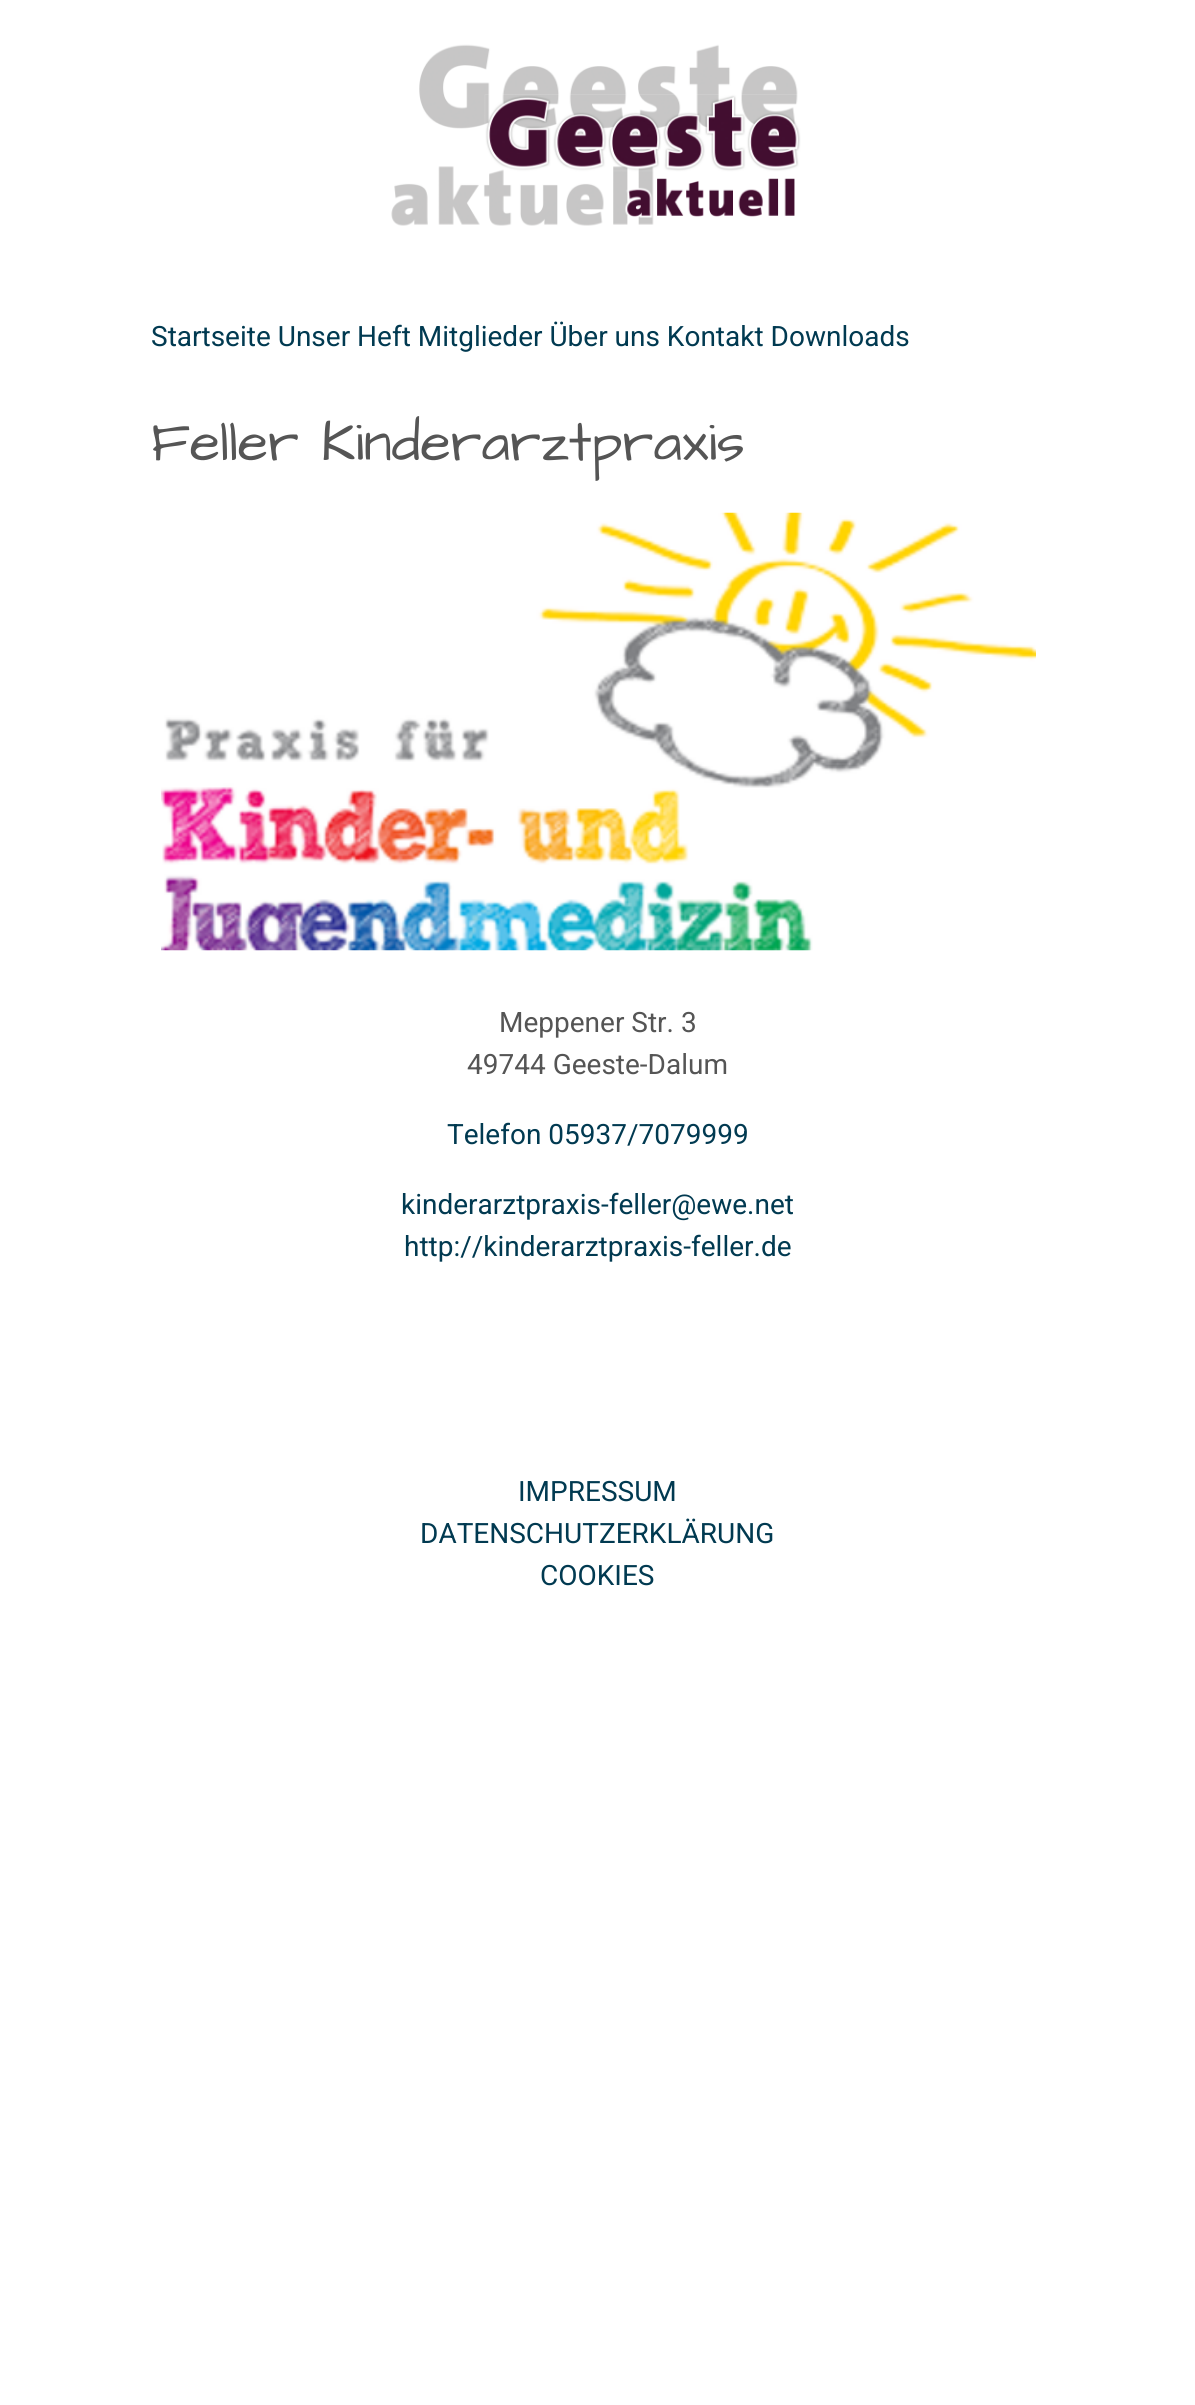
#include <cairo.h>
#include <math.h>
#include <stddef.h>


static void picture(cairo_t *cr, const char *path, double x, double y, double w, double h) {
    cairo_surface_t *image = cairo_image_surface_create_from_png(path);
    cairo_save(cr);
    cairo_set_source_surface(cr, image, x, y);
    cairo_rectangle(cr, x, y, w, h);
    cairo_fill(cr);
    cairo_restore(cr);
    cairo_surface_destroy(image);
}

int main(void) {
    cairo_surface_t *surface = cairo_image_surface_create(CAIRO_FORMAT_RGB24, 1195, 2405);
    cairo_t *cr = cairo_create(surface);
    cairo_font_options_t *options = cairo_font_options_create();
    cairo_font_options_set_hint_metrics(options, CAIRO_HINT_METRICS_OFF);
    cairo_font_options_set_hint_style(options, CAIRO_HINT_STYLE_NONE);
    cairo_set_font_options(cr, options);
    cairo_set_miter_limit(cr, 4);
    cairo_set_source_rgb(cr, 1, 1, 1);
    cairo_paint(cr);
    picture(cr, "img1.png", 391, 44, 410, 182);
    cairo_select_font_face(cr, "Roboto", CAIRO_FONT_SLANT_NORMAL, CAIRO_FONT_WEIGHT_NORMAL);
    cairo_set_font_size(cr, 28);
    cairo_set_source_rgb(cr, 0.004, 0.227, 0.318);
    cairo_move_to(cr, 151, 346);
    cairo_show_text(cr, "Startseite Unser Heft Mitglieder Über uns Kontakt Downloads");
    cairo_select_font_face(cr, "Architects Daughter", CAIRO_FONT_SLANT_NORMAL, CAIRO_FONT_WEIGHT_NORMAL);
    cairo_set_font_size(cr, 56);
    cairo_set_source_rgb(cr, 0.333, 0.333, 0.333);
    cairo_move_to(cr, 151, 460);
    cairo_show_text(cr, "Feller Kinderarztpraxis");
    picture(cr, "img2.png", 161, 512, 875, 439);
    cairo_select_font_face(cr, "Roboto", CAIRO_FONT_SLANT_NORMAL, CAIRO_FONT_WEIGHT_NORMAL);
    cairo_set_font_size(cr, 28);
    cairo_move_to(cr, 499, 1032);
    cairo_show_text(cr, "Meppener Str. 3");
    cairo_move_to(cr, 467, 1074);
    cairo_show_text(cr, "49744 Geeste-Dalum");
    cairo_set_source_rgb(cr, 0.004, 0.227, 0.318);
    cairo_move_to(cr, 447, 1144);
    cairo_show_text(cr, "Telefon 05937/7079999");
    cairo_move_to(cr, 401, 1214);
    cairo_show_text(cr, "kinderarztpraxis-feller@ewe.net");
    cairo_move_to(cr, 404, 1256);
    cairo_show_text(cr, "http://kinderarztpraxis-feller.de");
    cairo_move_to(cr, 518, 1501);
    cairo_show_text(cr, "IMPRESSUM");
    cairo_move_to(cr, 420, 1543);
    cairo_show_text(cr, "DATENSCHUTZERKLÄRUNG");
    cairo_move_to(cr, 540, 1585);
    cairo_show_text(cr, "COOKIES");
    cairo_surface_write_to_png(surface, "page.png");
    cairo_font_options_destroy(options);
    cairo_destroy(cr);
    cairo_surface_destroy(surface);
    return 0;
}
